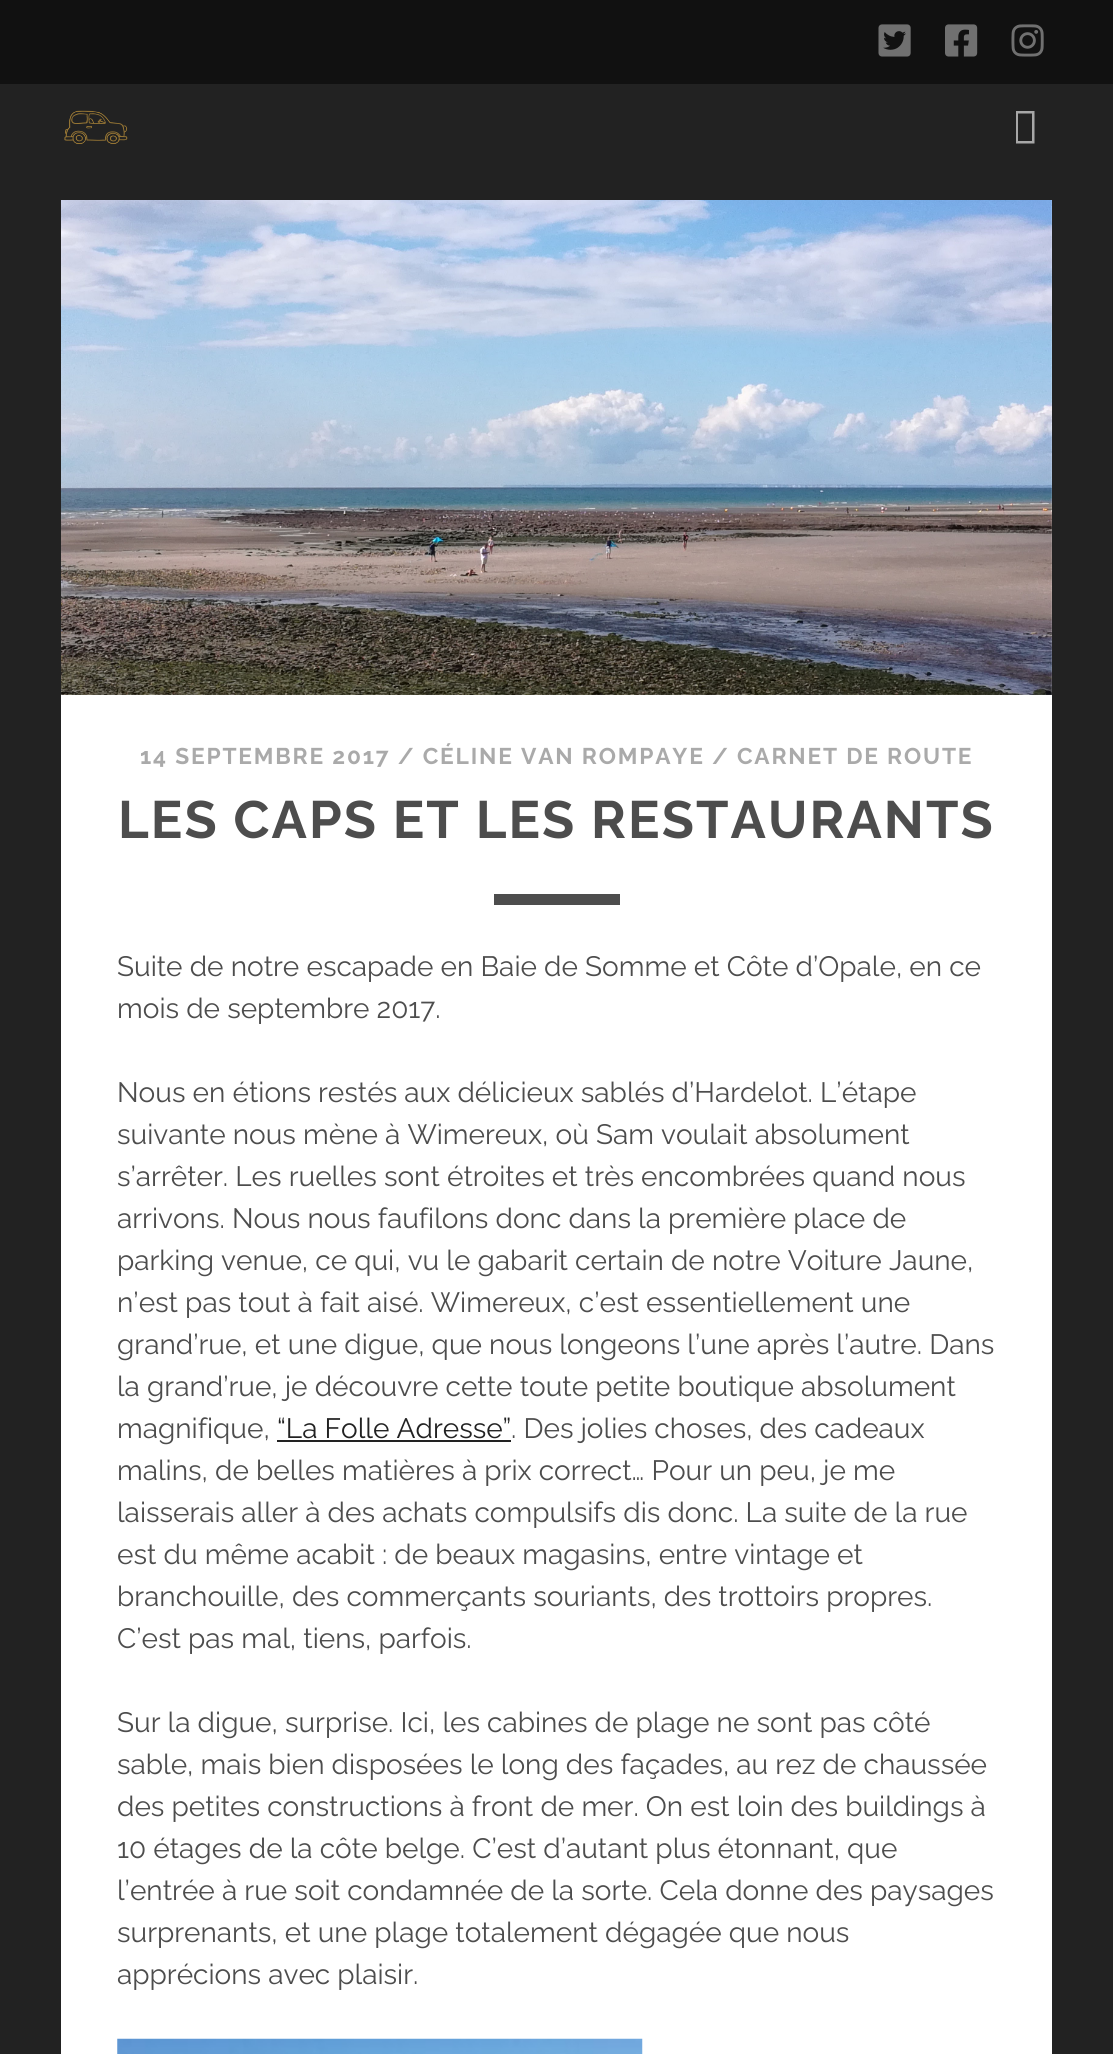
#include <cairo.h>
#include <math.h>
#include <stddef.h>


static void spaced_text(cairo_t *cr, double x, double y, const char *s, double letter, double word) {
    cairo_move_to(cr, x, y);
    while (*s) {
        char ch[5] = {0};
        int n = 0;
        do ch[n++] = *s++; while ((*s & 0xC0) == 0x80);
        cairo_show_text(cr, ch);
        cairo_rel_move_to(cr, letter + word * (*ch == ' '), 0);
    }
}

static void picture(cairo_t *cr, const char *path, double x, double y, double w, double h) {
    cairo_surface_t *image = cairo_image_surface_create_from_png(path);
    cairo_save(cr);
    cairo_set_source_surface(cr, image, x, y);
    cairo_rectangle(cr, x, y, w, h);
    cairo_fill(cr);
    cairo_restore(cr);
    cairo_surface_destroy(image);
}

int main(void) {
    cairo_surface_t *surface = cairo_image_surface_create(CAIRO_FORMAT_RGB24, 1113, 2054);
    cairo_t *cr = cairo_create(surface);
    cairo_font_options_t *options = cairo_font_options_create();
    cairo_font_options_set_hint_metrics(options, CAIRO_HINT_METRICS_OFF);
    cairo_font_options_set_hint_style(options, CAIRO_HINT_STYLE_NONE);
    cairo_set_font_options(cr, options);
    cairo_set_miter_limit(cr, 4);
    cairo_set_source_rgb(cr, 0.133, 0.133, 0.133);
    cairo_paint(cr);
    cairo_set_source_rgb(cr, 0.067, 0.067, 0.067);
    cairo_rectangle(cr, 0, 0, 1113, 84);
    cairo_fill(cr);
    picture(cr, "img1.png", 878, 24, 33, 33);
    picture(cr, "img2.png", 945, 24, 33, 33);
    picture(cr, "img3.png", 1011, 24, 33, 33);
    picture(cr, "img4.png", 64, 110, 64, 34);
    cairo_set_source_rgb(cr, 0.655, 0.655, 0.655);
    cairo_new_path(cr);
    cairo_move_to(cr, 1016, 143.5);
    cairo_line_to(cr, 1016, 111);
    cairo_line_to(cr, 1034.5, 111);
    cairo_line_to(cr, 1034.5, 143.5);
    cairo_close_path(cr);
    cairo_move_to(cr, 1018, 141);
    cairo_line_to(cr, 1032, 141);
    cairo_line_to(cr, 1032, 113.5);
    cairo_line_to(cr, 1018, 113.5);
    cairo_close_path(cr);
    cairo_fill(cr);
    cairo_set_source_rgb(cr, 1, 1, 1);
    cairo_rectangle(cr, 61, 200, 991, 1854);
    cairo_fill(cr);
    picture(cr, "img5.png", 61, 200, 991, 495);
    cairo_select_font_face(cr, "Raleway", CAIRO_FONT_SLANT_NORMAL, CAIRO_FONT_WEIGHT_BOLD);
    cairo_set_font_size(cr, 22.75);
    cairo_set_source_rgb(cr, 0.667, 0.667, 0.667);
    spaced_text(cr, 140, 764, "14 SEPTEMBRE 2017 / CÉLINE VAN ROMPAYE / CARNET DE ROUTE", 1.82, 0);
    cairo_set_font_size(cr, 52.5);
    cairo_set_source_rgb(cr, 0.302, 0.302, 0.302);
    spaced_text(cr, 118, 838, "LES CAPS ET LES RESTAURANTS", 2.1, 0);
    cairo_rectangle(cr, 494, 894, 126, 11);
    cairo_fill(cr);
    cairo_select_font_face(cr, "Raleway", CAIRO_FONT_SLANT_NORMAL, CAIRO_FONT_WEIGHT_NORMAL);
    cairo_set_font_size(cr, 28);
    cairo_move_to(cr, 117, 976);
    cairo_show_text(cr, "Suite de notre escapade en Baie de Somme et Côte d’Opale, en ce");
    cairo_move_to(cr, 117, 1018);
    cairo_show_text(cr, "mois de septembre 2017.");
    cairo_move_to(cr, 117, 1102);
    cairo_show_text(cr, "Nous en étions restés aux délicieux sablés d’Hardelot. L’étape");
    cairo_move_to(cr, 117, 1144);
    cairo_show_text(cr, "suivante nous mène à Wimereux, où Sam voulait absolument");
    cairo_move_to(cr, 117, 1186);
    cairo_show_text(cr, "s’arrêter. Les ruelles sont étroites et très encombrées quand nous");
    cairo_move_to(cr, 117, 1228);
    cairo_show_text(cr, "arrivons. Nous nous faufilons donc dans la première place de");
    cairo_move_to(cr, 117, 1270);
    cairo_show_text(cr, "parking venue, ce qui, vu le gabarit certain de notre Voiture Jaune,");
    cairo_move_to(cr, 117, 1312);
    cairo_show_text(cr, "n’est pas tout à fait aisé. Wimereux, c’est essentiellement une");
    cairo_move_to(cr, 117, 1354);
    cairo_show_text(cr, "grand’rue, et une digue, que nous longeons l’une après l’autre. Dans");
    cairo_move_to(cr, 117, 1396);
    cairo_show_text(cr, "la grand’rue, je découvre cette toute petite boutique absolument");
    cairo_move_to(cr, 117, 1438);
    cairo_show_text(cr, "magnifique,");
    cairo_set_source_rgb(cr, 0.133, 0.133, 0.133);
    cairo_move_to(cr, 277, 1438);
    cairo_show_text(cr, "“La Folle Adresse”");
    cairo_rectangle(cr, 277, 1440, 234, 2);
    cairo_fill(cr);
    cairo_set_source_rgb(cr, 0.302, 0.302, 0.302);
    cairo_move_to(cr, 511, 1438);
    cairo_show_text(cr, ". Des jolies choses, des cadeaux");
    cairo_move_to(cr, 117, 1480);
    cairo_show_text(cr, "malins, de belles matières à prix correct… Pour un peu, je me");
    cairo_move_to(cr, 117, 1522);
    cairo_show_text(cr, "laisserais aller à des achats compulsifs dis donc. La suite de la rue");
    cairo_move_to(cr, 117, 1564);
    cairo_show_text(cr, "est du même acabit : de beaux magasins, entre vintage et");
    cairo_move_to(cr, 117, 1606);
    cairo_show_text(cr, "branchouille, des commerçants souriants, des trottoirs propres.");
    cairo_move_to(cr, 117, 1648);
    cairo_show_text(cr, "C’est pas mal, tiens, parfois.");
    cairo_move_to(cr, 117, 1732);
    cairo_show_text(cr, "Sur la digue, surprise. Ici, les cabines de plage ne sont pas côté");
    cairo_move_to(cr, 117, 1774);
    cairo_show_text(cr, "sable, mais bien disposées le long des façades, au rez de chaussée");
    cairo_move_to(cr, 117, 1816);
    cairo_show_text(cr, "des petites constructions à front de mer. On est loin des buildings à");
    cairo_move_to(cr, 117, 1858);
    cairo_show_text(cr, "10 étages de la côte belge. C’est d’autant plus étonnant, que");
    cairo_move_to(cr, 117, 1900);
    cairo_show_text(cr, "l’entrée à rue soit condamnée de la sorte. Cela donne des paysages");
    cairo_move_to(cr, 117, 1942);
    cairo_show_text(cr, "surprenants, et une plage totalement dégagée que nous");
    cairo_move_to(cr, 117, 1984);
    cairo_show_text(cr, "apprécions avec plaisir.");
    picture(cr, "img6.png", 117, 2038, 526, 16);
    cairo_surface_write_to_png(surface, "page.png");
    cairo_font_options_destroy(options);
    cairo_destroy(cr);
    cairo_surface_destroy(surface);
    return 0;
}
